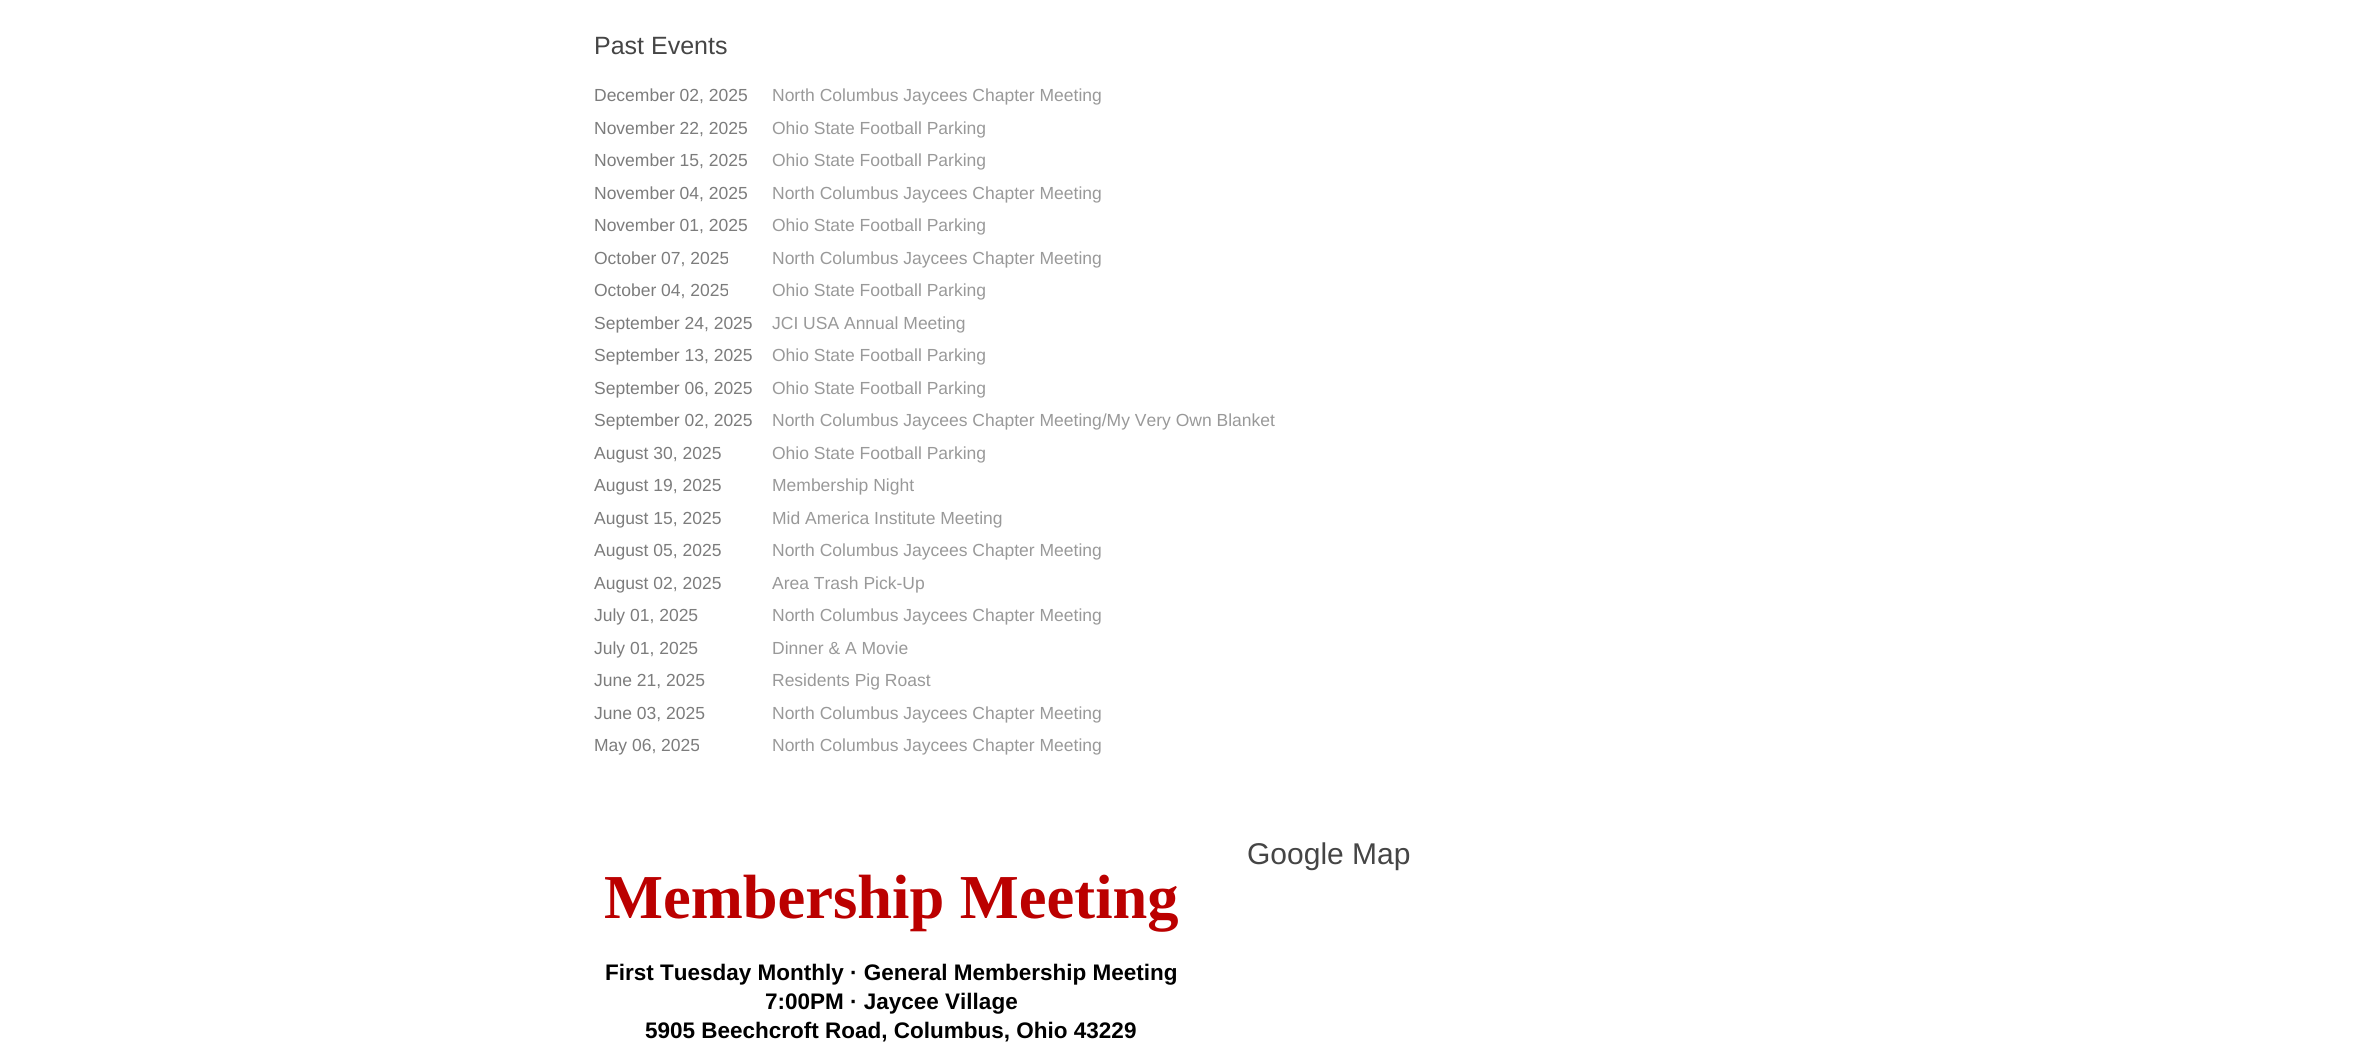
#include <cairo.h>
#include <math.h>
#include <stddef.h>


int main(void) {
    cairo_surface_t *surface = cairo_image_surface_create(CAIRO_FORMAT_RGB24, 2363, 1060);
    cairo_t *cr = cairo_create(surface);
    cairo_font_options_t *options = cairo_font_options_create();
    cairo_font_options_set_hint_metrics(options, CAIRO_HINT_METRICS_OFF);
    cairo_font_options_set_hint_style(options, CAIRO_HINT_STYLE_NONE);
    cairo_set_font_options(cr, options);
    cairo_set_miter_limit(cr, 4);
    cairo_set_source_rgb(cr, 1, 1, 1);
    cairo_paint(cr);
    cairo_select_font_face(cr, "Liberation Sans", CAIRO_FONT_SLANT_NORMAL, CAIRO_FONT_WEIGHT_NORMAL);
    cairo_set_font_size(cr, 25);
    cairo_set_source_rgb(cr, 0.271, 0.271, 0.271);
    cairo_move_to(cr, 594, 54);
    cairo_show_text(cr, "Past Events");
    cairo_set_font_size(cr, 17.5);
    cairo_set_source_rgb(cr, 0.486, 0.486, 0.486);
    cairo_move_to(cr, 594, 101);
    cairo_show_text(cr, "December 02, 2025");
    cairo_set_source_rgb(cr, 0.6, 0.6, 0.6);
    cairo_move_to(cr, 772, 101);
    cairo_show_text(cr, "North Columbus Jaycees Chapter Meeting");
    cairo_set_source_rgb(cr, 0.486, 0.486, 0.486);
    cairo_move_to(cr, 594, 134);
    cairo_show_text(cr, "November 22, 2025");
    cairo_set_source_rgb(cr, 0.6, 0.6, 0.6);
    cairo_move_to(cr, 772, 134);
    cairo_show_text(cr, "Ohio State Football Parking");
    cairo_set_source_rgb(cr, 0.486, 0.486, 0.486);
    cairo_move_to(cr, 594, 166);
    cairo_show_text(cr, "November 15, 2025");
    cairo_set_source_rgb(cr, 0.6, 0.6, 0.6);
    cairo_move_to(cr, 772, 166);
    cairo_show_text(cr, "Ohio State Football Parking");
    cairo_set_source_rgb(cr, 0.486, 0.486, 0.486);
    cairo_move_to(cr, 594, 199);
    cairo_show_text(cr, "November 04, 2025");
    cairo_set_source_rgb(cr, 0.6, 0.6, 0.6);
    cairo_move_to(cr, 772, 199);
    cairo_show_text(cr, "North Columbus Jaycees Chapter Meeting");
    cairo_set_source_rgb(cr, 0.486, 0.486, 0.486);
    cairo_move_to(cr, 594, 231);
    cairo_show_text(cr, "November 01, 2025");
    cairo_set_source_rgb(cr, 0.6, 0.6, 0.6);
    cairo_move_to(cr, 772, 231);
    cairo_show_text(cr, "Ohio State Football Parking");
    cairo_set_source_rgb(cr, 0.486, 0.486, 0.486);
    cairo_move_to(cr, 594, 264);
    cairo_show_text(cr, "October 07, 2025");
    cairo_set_source_rgb(cr, 0.6, 0.6, 0.6);
    cairo_move_to(cr, 772, 264);
    cairo_show_text(cr, "North Columbus Jaycees Chapter Meeting");
    cairo_set_source_rgb(cr, 0.486, 0.486, 0.486);
    cairo_move_to(cr, 594, 296);
    cairo_show_text(cr, "October 04, 2025");
    cairo_set_source_rgb(cr, 0.6, 0.6, 0.6);
    cairo_move_to(cr, 772, 296);
    cairo_show_text(cr, "Ohio State Football Parking");
    cairo_set_source_rgb(cr, 0.486, 0.486, 0.486);
    cairo_move_to(cr, 594, 329);
    cairo_show_text(cr, "September 24, 2025");
    cairo_set_source_rgb(cr, 0.6, 0.6, 0.6);
    cairo_move_to(cr, 772, 329);
    cairo_show_text(cr, "JCI USA Annual Meeting");
    cairo_set_source_rgb(cr, 0.486, 0.486, 0.486);
    cairo_move_to(cr, 594, 361);
    cairo_show_text(cr, "September 13, 2025");
    cairo_set_source_rgb(cr, 0.6, 0.6, 0.6);
    cairo_move_to(cr, 772, 361);
    cairo_show_text(cr, "Ohio State Football Parking");
    cairo_set_source_rgb(cr, 0.486, 0.486, 0.486);
    cairo_move_to(cr, 594, 394);
    cairo_show_text(cr, "September 06, 2025");
    cairo_set_source_rgb(cr, 0.6, 0.6, 0.6);
    cairo_move_to(cr, 772, 394);
    cairo_show_text(cr, "Ohio State Football Parking");
    cairo_set_source_rgb(cr, 0.486, 0.486, 0.486);
    cairo_move_to(cr, 594, 426);
    cairo_show_text(cr, "September 02, 2025");
    cairo_set_source_rgb(cr, 0.6, 0.6, 0.6);
    cairo_move_to(cr, 772, 426);
    cairo_show_text(cr, "North Columbus Jaycees Chapter Meeting/My Very Own Blanket");
    cairo_set_source_rgb(cr, 0.486, 0.486, 0.486);
    cairo_move_to(cr, 594, 459);
    cairo_show_text(cr, "August 30, 2025");
    cairo_set_source_rgb(cr, 0.6, 0.6, 0.6);
    cairo_move_to(cr, 772, 459);
    cairo_show_text(cr, "Ohio State Football Parking");
    cairo_set_source_rgb(cr, 0.486, 0.486, 0.486);
    cairo_move_to(cr, 594, 491);
    cairo_show_text(cr, "August 19, 2025");
    cairo_set_source_rgb(cr, 0.6, 0.6, 0.6);
    cairo_move_to(cr, 772, 491);
    cairo_show_text(cr, "Membership Night");
    cairo_set_source_rgb(cr, 0.486, 0.486, 0.486);
    cairo_move_to(cr, 594, 524);
    cairo_show_text(cr, "August 15, 2025");
    cairo_set_source_rgb(cr, 0.6, 0.6, 0.6);
    cairo_move_to(cr, 772, 524);
    cairo_show_text(cr, "Mid America Institute Meeting");
    cairo_set_source_rgb(cr, 0.486, 0.486, 0.486);
    cairo_move_to(cr, 594, 556);
    cairo_show_text(cr, "August 05, 2025");
    cairo_set_source_rgb(cr, 0.6, 0.6, 0.6);
    cairo_move_to(cr, 772, 556);
    cairo_show_text(cr, "North Columbus Jaycees Chapter Meeting");
    cairo_set_source_rgb(cr, 0.486, 0.486, 0.486);
    cairo_move_to(cr, 594, 589);
    cairo_show_text(cr, "August 02, 2025");
    cairo_set_source_rgb(cr, 0.6, 0.6, 0.6);
    cairo_move_to(cr, 772, 589);
    cairo_show_text(cr, "Area Trash Pick-Up");
    cairo_set_source_rgb(cr, 0.486, 0.486, 0.486);
    cairo_move_to(cr, 594, 621);
    cairo_show_text(cr, "July 01, 2025");
    cairo_set_source_rgb(cr, 0.6, 0.6, 0.6);
    cairo_move_to(cr, 772, 621);
    cairo_show_text(cr, "North Columbus Jaycees Chapter Meeting");
    cairo_set_source_rgb(cr, 0.486, 0.486, 0.486);
    cairo_move_to(cr, 594, 654);
    cairo_show_text(cr, "July 01, 2025");
    cairo_set_source_rgb(cr, 0.6, 0.6, 0.6);
    cairo_move_to(cr, 772, 654);
    cairo_show_text(cr, "Dinner & A Movie");
    cairo_set_source_rgb(cr, 0.486, 0.486, 0.486);
    cairo_move_to(cr, 594, 686);
    cairo_show_text(cr, "June 21, 2025");
    cairo_set_source_rgb(cr, 0.6, 0.6, 0.6);
    cairo_move_to(cr, 772, 686);
    cairo_show_text(cr, "Residents Pig Roast");
    cairo_set_source_rgb(cr, 0.486, 0.486, 0.486);
    cairo_move_to(cr, 594, 719);
    cairo_show_text(cr, "June 03, 2025");
    cairo_set_source_rgb(cr, 0.6, 0.6, 0.6);
    cairo_move_to(cr, 772, 719);
    cairo_show_text(cr, "North Columbus Jaycees Chapter Meeting");
    cairo_set_source_rgb(cr, 0.486, 0.486, 0.486);
    cairo_move_to(cr, 594, 751);
    cairo_show_text(cr, "May 06, 2025");
    cairo_set_source_rgb(cr, 0.6, 0.6, 0.6);
    cairo_move_to(cr, 772, 751);
    cairo_show_text(cr, "North Columbus Jaycees Chapter Meeting");
    cairo_set_font_size(cr, 30);
    cairo_set_source_rgb(cr, 0.271, 0.271, 0.271);
    cairo_move_to(cr, 1247, 864);
    cairo_show_text(cr, "Google Map");
    cairo_select_font_face(cr, "Liberation Serif", CAIRO_FONT_SLANT_NORMAL, CAIRO_FONT_WEIGHT_BOLD);
    cairo_set_font_size(cr, 62.5);
    cairo_set_source_rgb(cr, 0.733, 0, 0);
    cairo_move_to(cr, 604, 918);
    cairo_show_text(cr, "Membership Meeting");
    cairo_select_font_face(cr, "Liberation Sans", CAIRO_FONT_SLANT_NORMAL, CAIRO_FONT_WEIGHT_BOLD);
    cairo_set_font_size(cr, 22.5);
    cairo_set_source_rgb(cr, 0, 0, 0);
    cairo_move_to(cr, 605, 980);
    cairo_show_text(cr, "First Tuesday Monthly · General Membership Meeting");
    cairo_move_to(cr, 765, 1009);
    cairo_show_text(cr, "7:00PM · Jaycee Village");
    cairo_move_to(cr, 645, 1038);
    cairo_show_text(cr, "5905 Beechcroft Road, Columbus, Ohio 43229");
    cairo_surface_write_to_png(surface, "page.png");
    cairo_font_options_destroy(options);
    cairo_destroy(cr);
    cairo_surface_destroy(surface);
    return 0;
}
